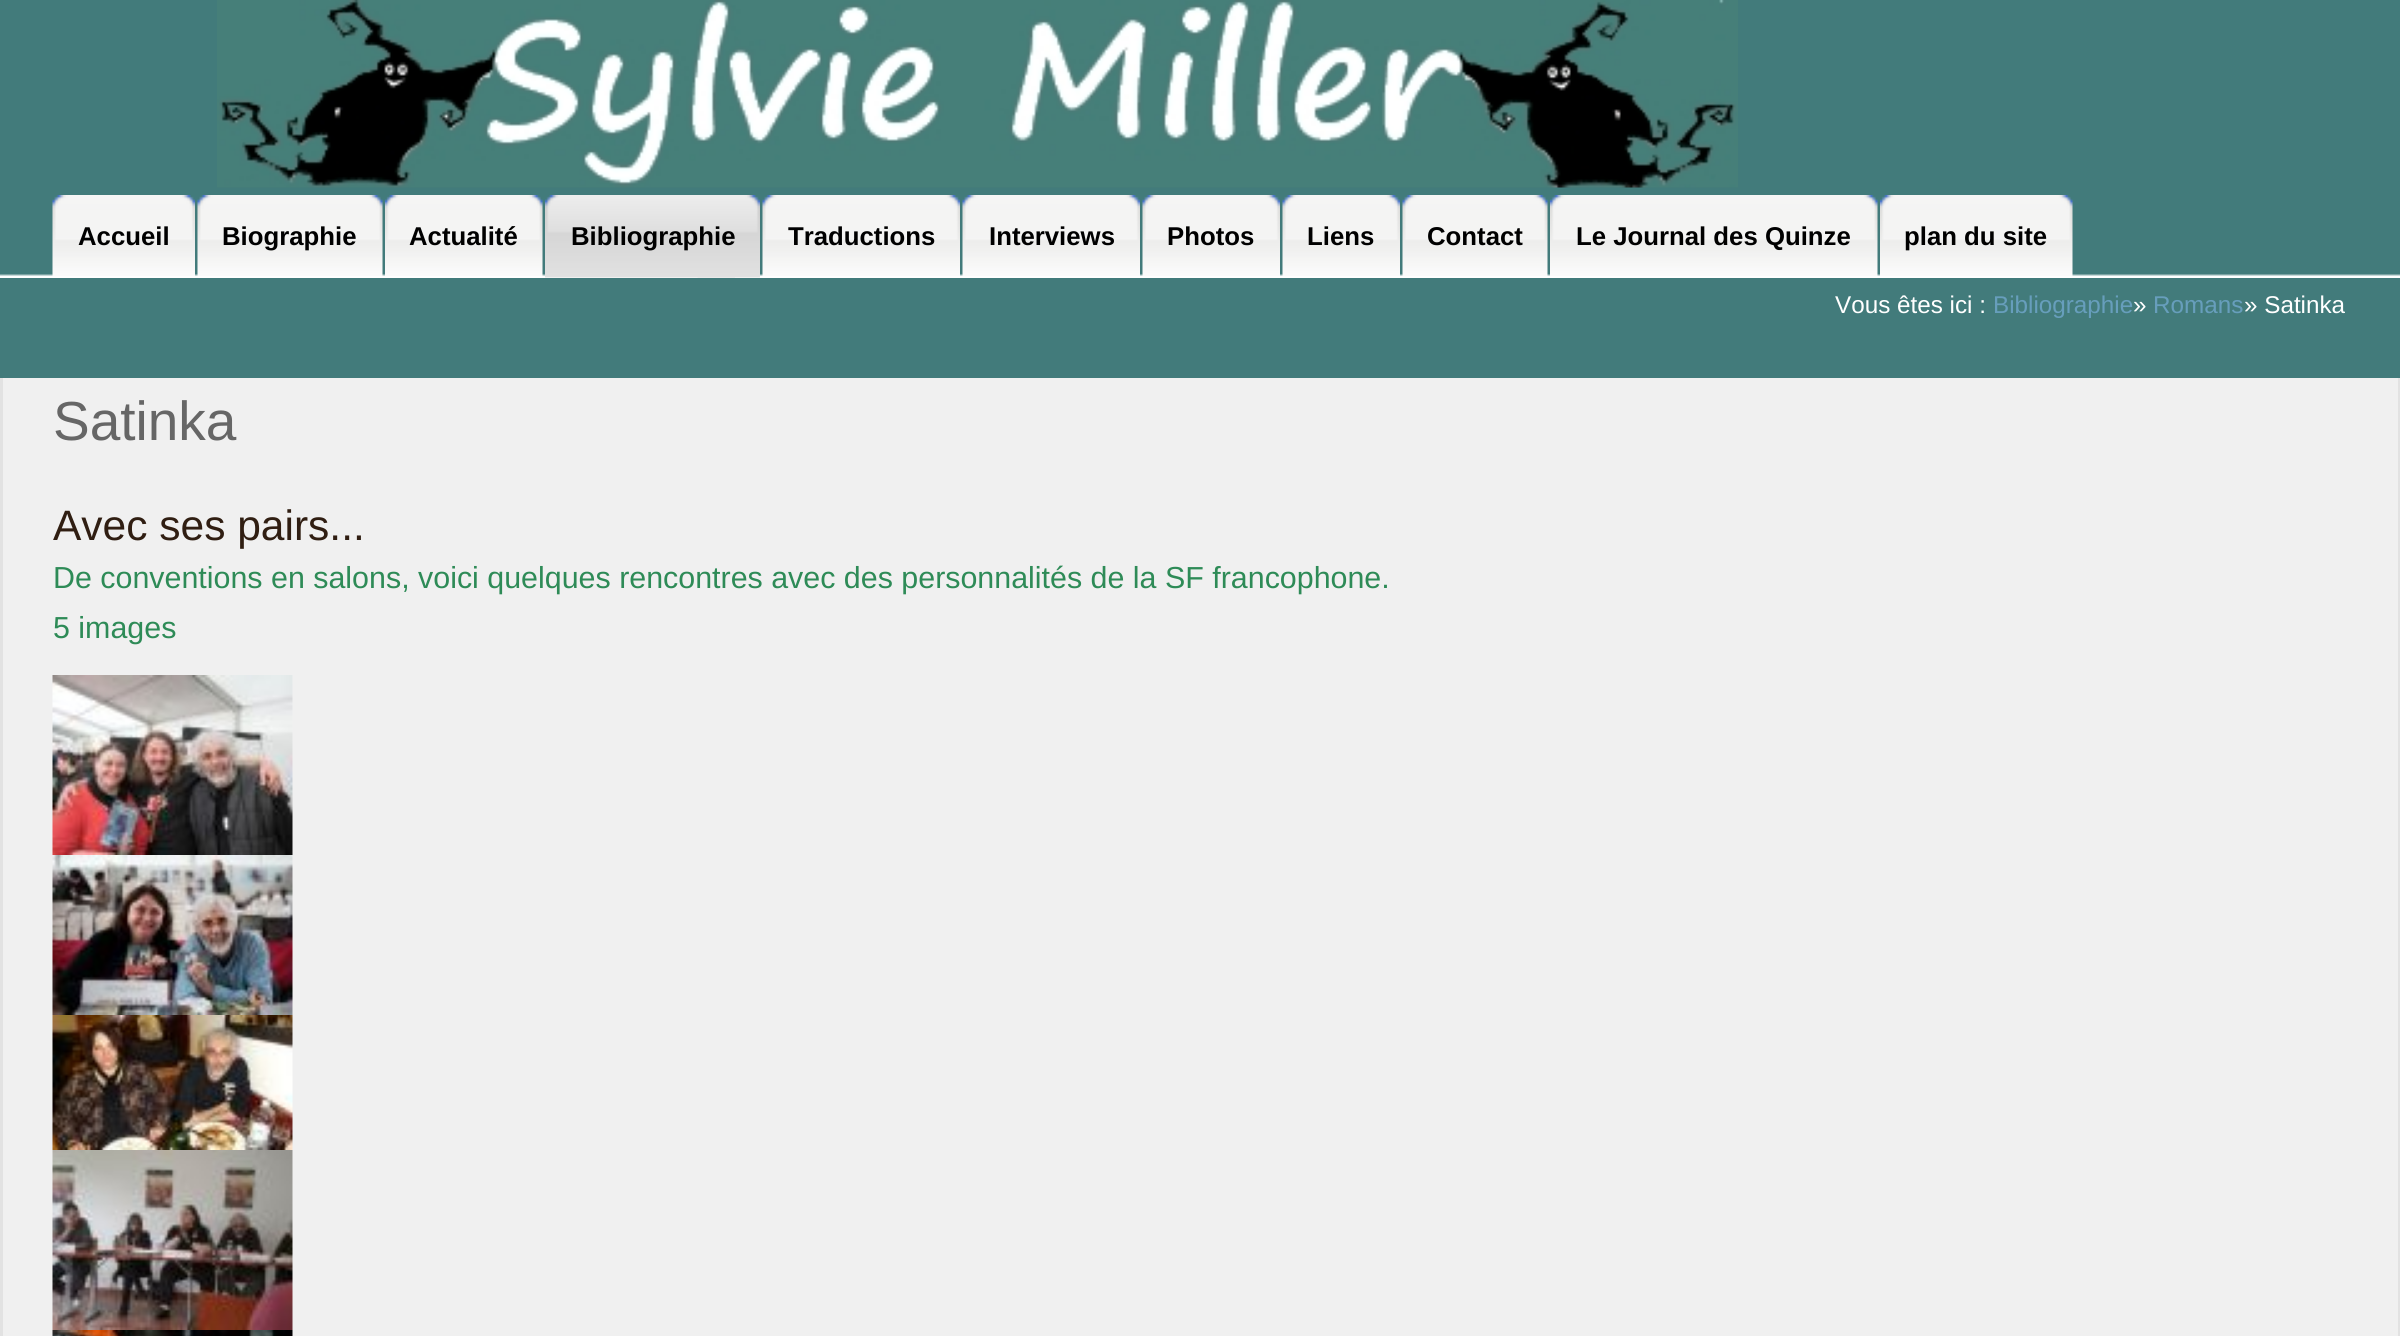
#include <cairo.h>
#include <math.h>
#include <stddef.h>


static void picture(cairo_t *cr, const char *path, double x, double y, double w, double h) {
    cairo_surface_t *image = cairo_image_surface_create_from_png(path);
    cairo_save(cr);
    cairo_set_source_surface(cr, image, x, y);
    cairo_rectangle(cr, x, y, w, h);
    cairo_fill(cr);
    cairo_restore(cr);
    cairo_surface_destroy(image);
}

int main(void) {
    cairo_surface_t *surface = cairo_image_surface_create(CAIRO_FORMAT_RGB24, 2400, 1336);
    cairo_t *cr = cairo_create(surface);
    cairo_font_options_t *options = cairo_font_options_create();
    cairo_font_options_set_hint_metrics(options, CAIRO_HINT_METRICS_OFF);
    cairo_font_options_set_hint_style(options, CAIRO_HINT_STYLE_NONE);
    cairo_set_font_options(cr, options);
    cairo_set_miter_limit(cr, 4);
    cairo_set_source_rgb(cr, 1, 1, 1);
    cairo_paint(cr);
    picture(cr, "img1.png", 0, 0, 2400, 276);
    picture(cr, "img2.png", 217, 0, 1521, 188);
    picture(cr, "img3.png", 133, 195, 62, 81);
    picture(cr, "img4.png", 52, 195, 81, 81);
    cairo_select_font_face(cr, "Liberation Sans", CAIRO_FONT_SLANT_NORMAL, CAIRO_FONT_WEIGHT_BOLD);
    cairo_set_font_size(cr, 25.75);
    cairo_set_source_rgb(cr, 0, 0, 0);
    cairo_move_to(cr, 78, 245);
    cairo_show_text(cr, "Accueil");
    picture(cr, "img5.png", 321, 195, 62, 81);
    picture(cr, "img6.png", 197, 195, 124, 81);
    cairo_move_to(cr, 222, 245);
    cairo_show_text(cr, "Biographie");
    picture(cr, "img7.png", 482, 195, 61, 81);
    picture(cr, "img8.png", 385, 195, 97, 81);
    cairo_move_to(cr, 409, 245);
    cairo_show_text(cr, "Actualité");
    picture(cr, "img9.png", 696, 195, 64, 83);
    picture(cr, "img10.png", 545, 195, 190, 83);
    cairo_move_to(cr, 571, 245);
    cairo_show_text(cr, "Bibliographie");
    picture(cr, "img11.png", 899, 195, 61, 81);
    picture(cr, "img12.png", 762, 195, 137, 81);
    cairo_move_to(cr, 788, 245);
    cairo_show_text(cr, "Traductions");
    picture(cr, "img13.png", 1078, 195, 62, 81);
    picture(cr, "img14.png", 962, 195, 116, 81);
    cairo_move_to(cr, 989, 245);
    cairo_show_text(cr, "Interviews");
    picture(cr, "img15.png", 1219, 195, 61, 81);
    picture(cr, "img16.png", 1142, 195, 77, 81);
    cairo_move_to(cr, 1167, 245);
    cairo_show_text(cr, "Photos");
    picture(cr, "img17.png", 1339, 195, 61, 81);
    picture(cr, "img18.png", 1282, 195, 57, 81);
    cairo_move_to(cr, 1307, 245);
    cairo_show_text(cr, "Liens");
    picture(cr, "img19.png", 1487, 195, 61, 81);
    picture(cr, "img20.png", 1402, 195, 85, 81);
    cairo_move_to(cr, 1427, 245);
    cairo_show_text(cr, "Contact");
    picture(cr, "img21.png", 1816, 195, 62, 81);
    picture(cr, "img22.png", 1550, 195, 266, 81);
    cairo_move_to(cr, 1576, 245);
    cairo_show_text(cr, "Le Journal des Quinze");
    picture(cr, "img23.png", 2012, 195, 61, 81);
    picture(cr, "img24.png", 1880, 195, 132, 81);
    cairo_move_to(cr, 1904, 245);
    cairo_show_text(cr, "plan du site");
    cairo_set_source_rgb(cr, 0.259, 0.482, 0.482);
    cairo_rectangle(cr, 0, 278, 2400, 100);
    cairo_fill(cr);
    cairo_select_font_face(cr, "Liberation Sans", CAIRO_FONT_SLANT_NORMAL, CAIRO_FONT_WEIGHT_NORMAL);
    cairo_set_font_size(cr, 24.25);
    cairo_set_source_rgb(cr, 1, 1, 1);
    cairo_move_to(cr, 1835, 313);
    cairo_show_text(cr, "Vous êtes ici :");
    cairo_set_source_rgb(cr, 0.404, 0.62, 0.737);
    cairo_move_to(cr, 1993, 313);
    cairo_show_text(cr, "Bibliographie");
    cairo_set_source_rgb(cr, 1, 1, 1);
    cairo_move_to(cr, 2133, 313);
    cairo_show_text(cr, "»");
    cairo_set_source_rgb(cr, 0.404, 0.62, 0.737);
    cairo_move_to(cr, 2153, 313);
    cairo_show_text(cr, "Romans");
    cairo_set_source_rgb(cr, 1, 1, 1);
    cairo_move_to(cr, 2244, 313);
    cairo_show_text(cr, "» Satinka");
    cairo_set_source_rgb(cr, 0.941, 0.941, 0.941);
    cairo_rectangle(cr, 3, 378, 2395, 958);
    cairo_fill(cr);
    cairo_set_source_rgb(cr, 0.886, 0.886, 0.886);
    cairo_rectangle(cr, 2398, 378, 2, 958);
    cairo_fill(cr);
    cairo_rectangle(cr, 0, 378, 3, 958);
    cairo_fill(cr);
    cairo_set_font_size(cr, 55);
    cairo_set_source_rgb(cr, 0.4, 0.4, 0.4);
    cairo_move_to(cr, 53, 440);
    cairo_show_text(cr, "Satinka");
    cairo_set_font_size(cr, 42.5);
    cairo_set_source_rgb(cr, 0.188, 0.118, 0.071);
    cairo_move_to(cr, 53, 540);
    cairo_show_text(cr, "Avec ses pairs...");
    cairo_set_font_size(cr, 30.4);
    cairo_set_source_rgb(cr, 0.18, 0.545, 0.341);
    cairo_move_to(cr, 53, 588);
    cairo_show_text(cr, "De conventions en salons, voici quelques rencontres avec des personnalités de la SF francophone.");
    cairo_move_to(cr, 53, 638);
    cairo_show_text(cr, "5 images");
    picture(cr, "img25.png", 52, 675, 241, 180);
    picture(cr, "img26.png", 52, 855, 241, 160);
    picture(cr, "img27.png", 52, 1015, 241, 135);
    picture(cr, "img28.png", 52, 1150, 241, 180);
    picture(cr, "img29.png", 52, 1330, 241, 6);
    cairo_surface_write_to_png(surface, "page.png");
    cairo_font_options_destroy(options);
    cairo_destroy(cr);
    cairo_surface_destroy(surface);
    return 0;
}
